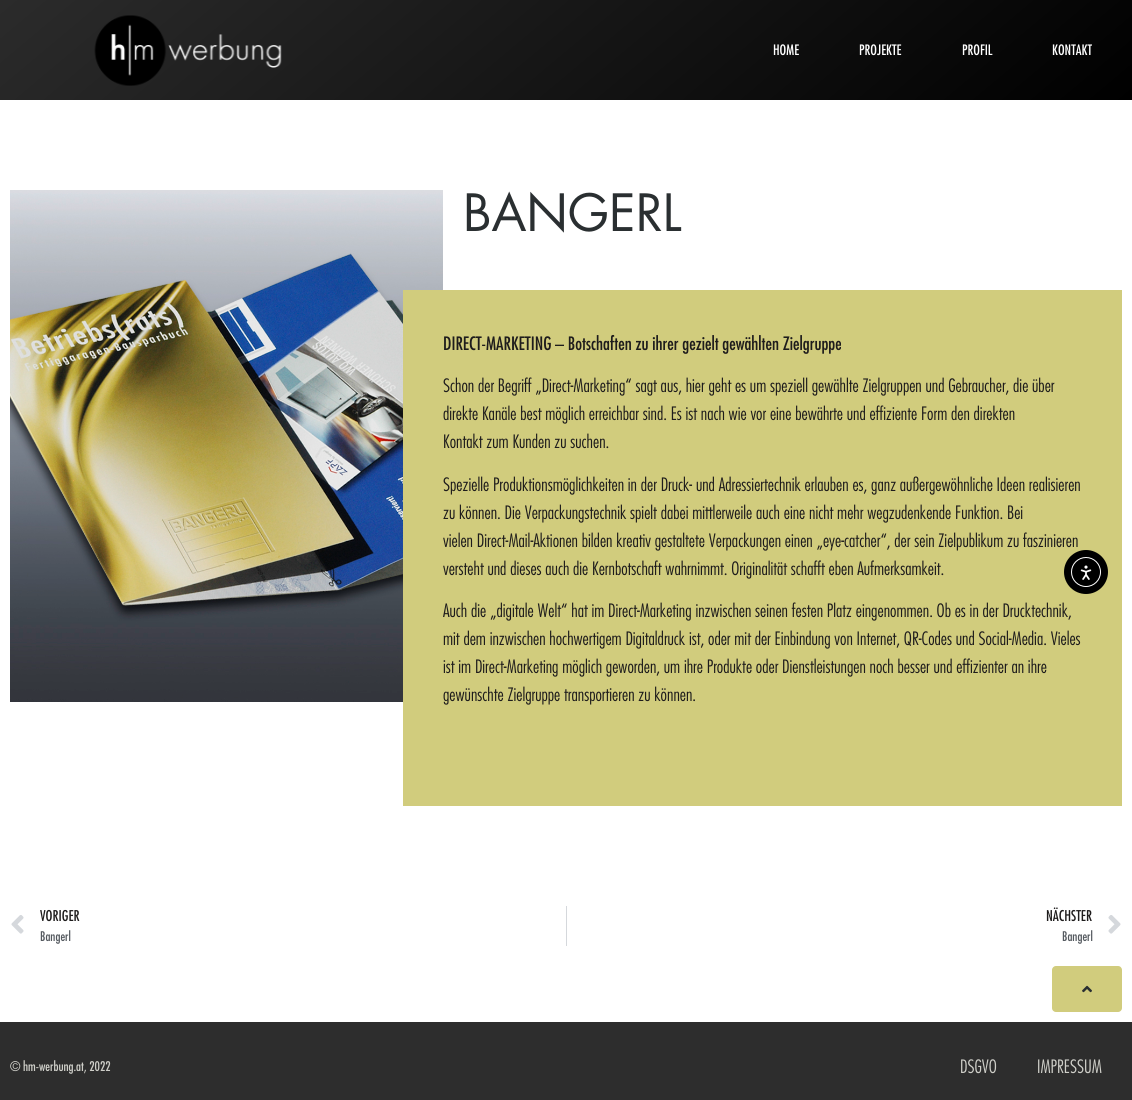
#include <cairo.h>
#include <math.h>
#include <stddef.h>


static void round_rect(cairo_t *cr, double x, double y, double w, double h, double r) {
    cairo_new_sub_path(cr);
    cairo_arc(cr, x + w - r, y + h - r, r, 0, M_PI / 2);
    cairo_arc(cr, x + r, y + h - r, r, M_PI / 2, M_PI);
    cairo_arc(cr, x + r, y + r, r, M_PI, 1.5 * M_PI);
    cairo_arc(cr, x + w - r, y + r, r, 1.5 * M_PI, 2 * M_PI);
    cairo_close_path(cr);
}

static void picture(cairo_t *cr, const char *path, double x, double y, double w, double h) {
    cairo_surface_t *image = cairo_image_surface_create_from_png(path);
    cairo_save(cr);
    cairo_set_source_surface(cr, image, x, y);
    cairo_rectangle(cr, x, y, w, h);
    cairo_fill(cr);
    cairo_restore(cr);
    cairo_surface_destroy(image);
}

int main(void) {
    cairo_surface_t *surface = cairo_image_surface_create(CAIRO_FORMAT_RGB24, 1132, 1100);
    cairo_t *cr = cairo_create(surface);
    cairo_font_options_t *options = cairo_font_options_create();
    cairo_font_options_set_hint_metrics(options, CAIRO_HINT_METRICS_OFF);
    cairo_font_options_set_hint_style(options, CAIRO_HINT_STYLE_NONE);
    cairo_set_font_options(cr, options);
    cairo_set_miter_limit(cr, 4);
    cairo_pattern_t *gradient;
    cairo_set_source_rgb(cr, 1, 1, 1);
    cairo_paint(cr);
    gradient = cairo_pattern_create_linear(308, -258, 824, 358);
    cairo_pattern_add_color_stop_rgba(gradient, 0, 0.169, 0.169, 0.169, 1);
    cairo_pattern_add_color_stop_rgba(gradient, 1, 0, 0, 0, 1);
    cairo_set_source(cr, gradient);
    cairo_pattern_destroy(gradient);
    cairo_rectangle(cr, 0, 0, 1132, 100);
    cairo_fill(cr);
    picture(cr, "img1.png", 94, 15, 188, 71);
    cairo_select_font_face(cr, "Futura Medium", CAIRO_FONT_SLANT_NORMAL, CAIRO_FONT_WEIGHT_NORMAL);
    cairo_set_font_size(cr, 14);
    cairo_set_source_rgb(cr, 1, 1, 1);
    cairo_move_to(cr, 773, 55);
    cairo_show_text(cr, "HOME");
    cairo_move_to(cr, 859, 55);
    cairo_show_text(cr, "PROJEKTE");
    cairo_move_to(cr, 962, 55);
    cairo_show_text(cr, "PROFIL");
    cairo_move_to(cr, 1052, 55);
    cairo_show_text(cr, "KONTAKT");
    picture(cr, "img2.png", 10, 190, 433, 512);
    cairo_select_font_face(cr, "Futura", CAIRO_FONT_SLANT_NORMAL, CAIRO_FONT_WEIGHT_NORMAL);
    cairo_set_font_size(cr, 50);
    cairo_set_source_rgb(cr, 0.165, 0.184, 0.192);
    cairo_move_to(cr, 463, 231);
    cairo_show_text(cr, "BANGERL");
    cairo_set_source_rgb(cr, 0.82, 0.8, 0.49);
    cairo_rectangle(cr, 403, 290, 719, 516);
    cairo_fill(cr);
    cairo_select_font_face(cr, "Futura Medium", CAIRO_FONT_SLANT_NORMAL, CAIRO_FONT_WEIGHT_NORMAL);
    cairo_set_font_size(cr, 18);
    cairo_set_source_rgb(cr, 0.118, 0.11, 0.11);
    cairo_move_to(cr, 443, 350);
    cairo_show_text(cr, "DIRECT-MARKETING – Botschaften zu ihrer gezielt gewählten Zielgruppe");
    cairo_select_font_face(cr, "Futura Light", CAIRO_FONT_SLANT_NORMAL, CAIRO_FONT_WEIGHT_NORMAL);
    cairo_move_to(cr, 443, 392);
    cairo_show_text(cr, "Schon der Begriff „Direct-Marketing“ sagt aus, hier geht es um speziell gewählte Zielgruppen und Gebraucher, die über");
    cairo_move_to(cr, 443, 420);
    cairo_show_text(cr, "direkte Kanäle best möglich erreichbar sind. Es ist nach wie vor eine bewährte und effiziente Form den direkten");
    cairo_move_to(cr, 443, 448);
    cairo_show_text(cr, "Kontakt zum Kunden zu suchen.");
    cairo_move_to(cr, 443, 491);
    cairo_show_text(cr, "Spezielle Produktionsmöglichkeiten in der Druck- und Adressiertechnik erlauben es, ganz außergewöhnliche Ideen realisieren");
    cairo_move_to(cr, 443, 519);
    cairo_show_text(cr, "zu können. Die Verpackungstechnik spielt dabei mittlerweile auch eine nicht mehr wegzudenkende Funktion. Bei");
    cairo_move_to(cr, 443, 547);
    cairo_show_text(cr, "vielen Direct-Mail-Aktionen bilden kreativ gestaltete Verpackungen einen „eye-catcher“, der sein Zielpublikum zu faszinieren");
    cairo_move_to(cr, 443, 575);
    cairo_show_text(cr, "versteht und dieses auch die Kernbotschaft wahrnimmt. Originalität schafft eben Aufmerksamkeit.");
    cairo_move_to(cr, 443, 617);
    cairo_show_text(cr, "Auch die „digitale Welt“ hat im Direct-Marketing inzwischen seinen festen Platz eingenommen. Ob es in der Drucktechnik,");
    cairo_move_to(cr, 443, 645);
    cairo_show_text(cr, "mit dem inzwischen hochwertigem Digitaldruck ist, oder mit der Einbindung von Internet, QR-Codes und Social-Media. Vieles");
    cairo_move_to(cr, 443, 673);
    cairo_show_text(cr, "ist im Direct-Marketing möglich geworden, um ihre Produkte oder Dienstleistungen noch besser und effizienter an ihre");
    cairo_move_to(cr, 443, 701);
    cairo_show_text(cr, "gewünschte Zielgruppe transportieren zu können.");
    picture(cr, "img3.png", 11, 915, 13, 19);
    cairo_select_font_face(cr, "Futura Medium", CAIRO_FONT_SLANT_NORMAL, CAIRO_FONT_WEIGHT_NORMAL);
    cairo_set_font_size(cr, 14.5);
    cairo_move_to(cr, 40, 921);
    cairo_show_text(cr, "VORIGER");
    cairo_set_font_size(cr, 13);
    cairo_set_source_rgb(cr, 0.329, 0.349, 0.373);
    cairo_move_to(cr, 40, 941);
    cairo_show_text(cr, "Bangerl");
    cairo_set_source_rgb(cr, 0.835, 0.847, 0.863);
    cairo_rectangle(cr, 566, 906, 1, 40);
    cairo_fill(cr);
    cairo_set_font_size(cr, 14.5);
    cairo_set_source_rgb(cr, 0.118, 0.11, 0.11);
    cairo_move_to(cr, 1046, 921);
    cairo_show_text(cr, "NÄCHSTER");
    cairo_set_font_size(cr, 13);
    cairo_set_source_rgb(cr, 0.329, 0.349, 0.373);
    cairo_move_to(cr, 1062, 941);
    cairo_show_text(cr, "Bangerl");
    picture(cr, "img4.png", 1108, 915, 13, 19);
    cairo_set_source_rgb(cr, 0, 0, 0);
    cairo_arc(cr, 1086, 572, 22, 0, 2 * M_PI);
    cairo_fill(cr);
    cairo_arc(cr, 1086, 572, 14.5, 0, 2 * M_PI);
    cairo_set_source_rgb(cr, 1, 1, 1);
    cairo_set_line_width(cr, 1);
    cairo_stroke(cr);
    picture(cr, "img5.png", 1080, 565, 12, 15);
    cairo_set_source_rgb(cr, 0.82, 0.8, 0.49);
    round_rect(cr, 1052, 966, 70, 46, 4);
    cairo_fill(cr);
    picture(cr, "img6.png", 1082, 985, 10, 8);
    cairo_set_source_rgb(cr, 0.176, 0.176, 0.176);
    cairo_rectangle(cr, 0, 1022, 1132, 78);
    cairo_fill(cr);
    cairo_set_source_rgb(cr, 0.812, 0.812, 0.788);
    cairo_move_to(cr, 10, 1071);
    cairo_show_text(cr, "© hm-werbung.at, 2022");
    cairo_select_font_face(cr, "Futura Light", CAIRO_FONT_SLANT_NORMAL, CAIRO_FONT_WEIGHT_NORMAL);
    cairo_set_font_size(cr, 18);
    cairo_move_to(cr, 960, 1073);
    cairo_show_text(cr, "DSGVO");
    cairo_move_to(cr, 1037, 1073);
    cairo_show_text(cr, "IMPRESSUM");
    cairo_surface_write_to_png(surface, "page.png");
    cairo_font_options_destroy(options);
    cairo_destroy(cr);
    cairo_surface_destroy(surface);
    return 0;
}
